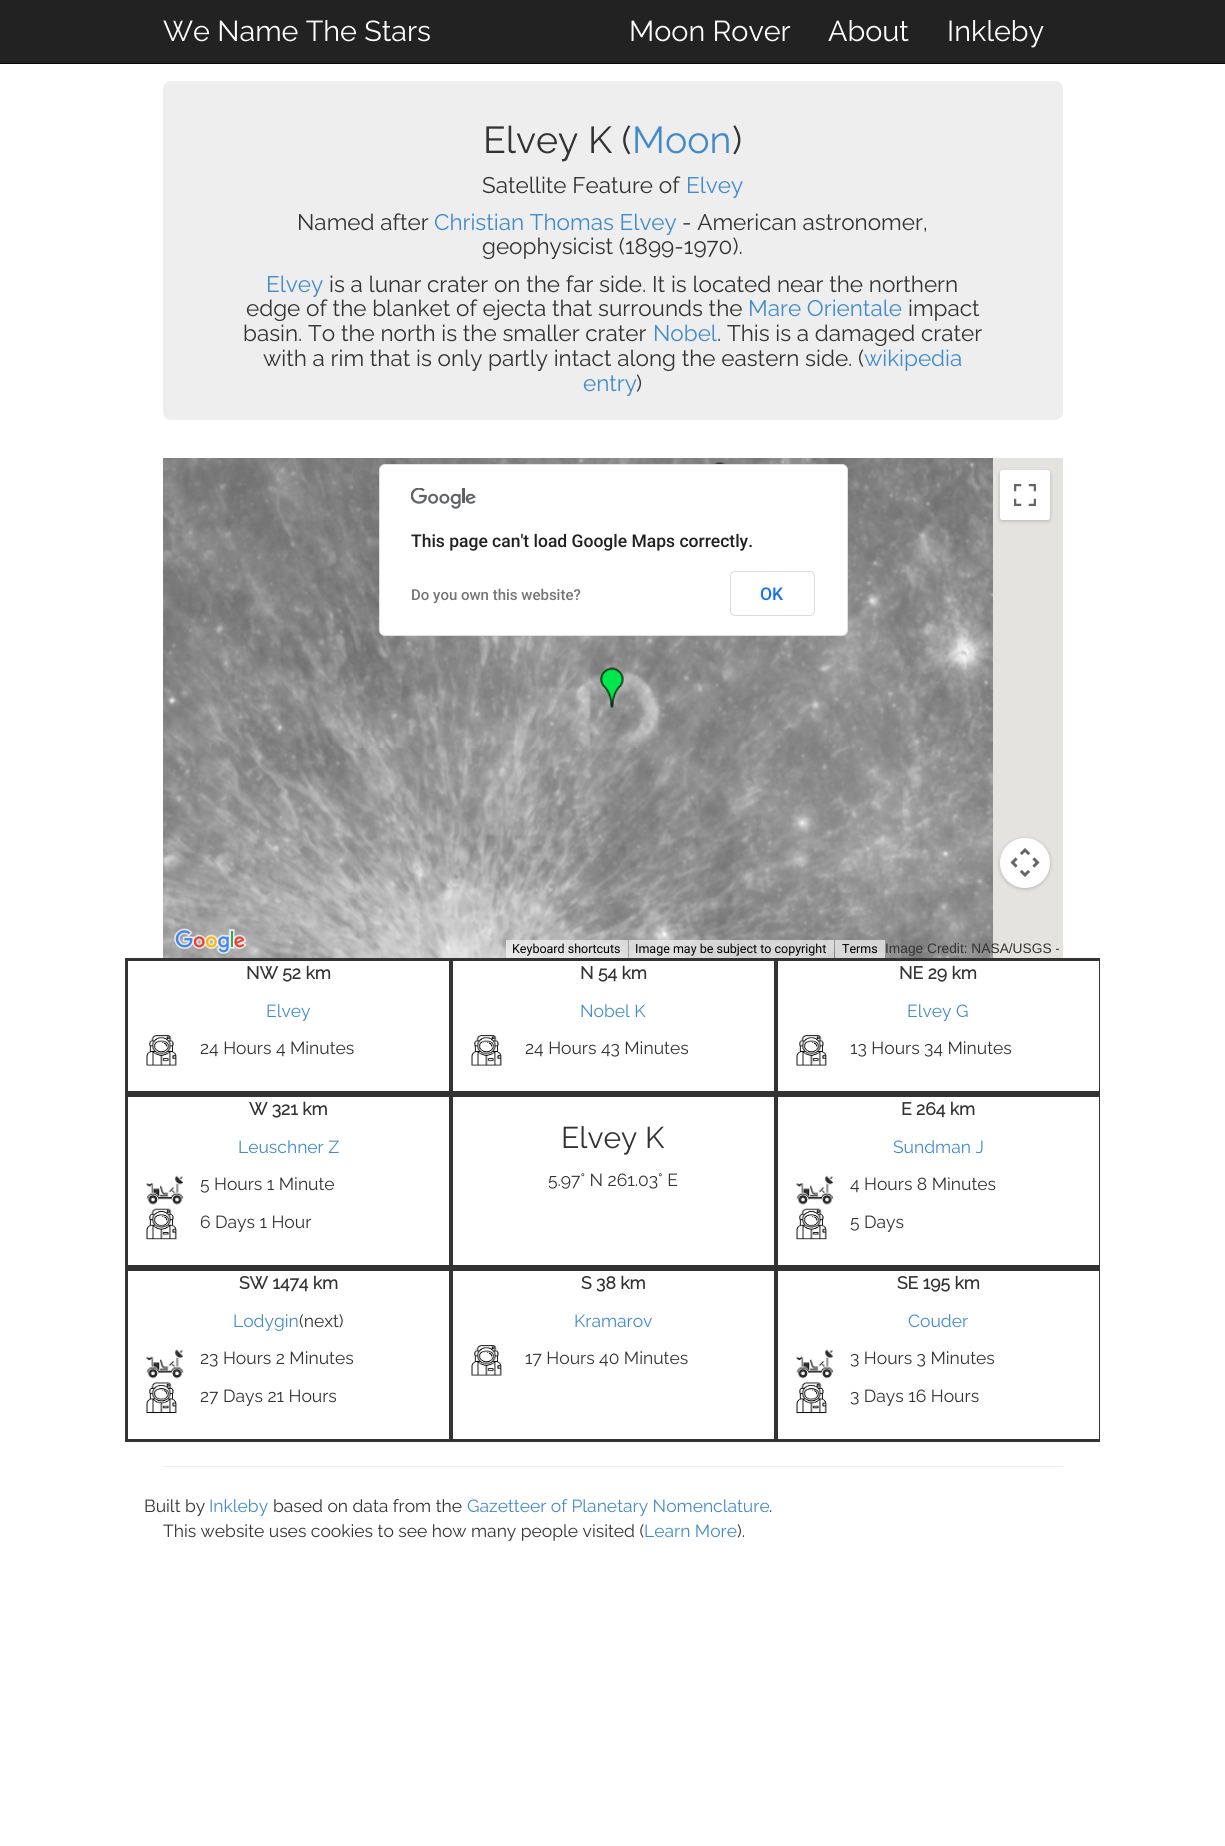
#include <cairo.h>
#include <math.h>
#include <stddef.h>


static void round_rect(cairo_t *cr, double x, double y, double w, double h, double r) {
    cairo_new_sub_path(cr);
    cairo_arc(cr, x + w - r, y + h - r, r, 0, M_PI / 2);
    cairo_arc(cr, x + r, y + h - r, r, M_PI / 2, M_PI);
    cairo_arc(cr, x + r, y + r, r, M_PI, 1.5 * M_PI);
    cairo_arc(cr, x + w - r, y + r, r, 1.5 * M_PI, 2 * M_PI);
    cairo_close_path(cr);
}

static void shadow(cairo_t *cr, double x, double y, double w, double h, double r, double blur, double alpha) {
    cairo_push_group_with_content(cr, CAIRO_CONTENT_ALPHA);
    cairo_set_operator(cr, CAIRO_OPERATOR_SOURCE);
    for (int i = 15; i >= -15 && fmin(w, h) + blur * i / 3 > 0; i -= 2) {
        double e = blur * i / 6;
        cairo_set_source_rgba(cr, 0, 0, 0, alpha * erfc((i - 1) / 8.5) / 2);
        round_rect(cr, x - e, y - e, w + 2 * e, h + 2 * e, fmax(0, fmin(r + e + blur * .6, fmin(w, h) / 2 + e)));
        cairo_fill(cr);
    }
    cairo_pattern_t *soft = cairo_pop_group(cr);
    cairo_mask(cr, soft);
    cairo_pattern_destroy(soft);
}

static void picture(cairo_t *cr, const char *path, double x, double y, double w, double h) {
    cairo_surface_t *image = cairo_image_surface_create_from_png(path);
    cairo_save(cr);
    cairo_set_source_surface(cr, image, x, y);
    cairo_rectangle(cr, x, y, w, h);
    cairo_fill(cr);
    cairo_restore(cr);
    cairo_surface_destroy(image);
}

int main(void) {
    cairo_surface_t *surface = cairo_image_surface_create(CAIRO_FORMAT_RGB24, 1225, 1846);
    cairo_t *cr = cairo_create(surface);
    cairo_font_options_t *options = cairo_font_options_create();
    cairo_font_options_set_hint_metrics(options, CAIRO_HINT_METRICS_OFF);
    cairo_font_options_set_hint_style(options, CAIRO_HINT_STYLE_NONE);
    cairo_set_font_options(cr, options);
    cairo_set_miter_limit(cr, 4);
    cairo_set_source_rgb(cr, 1, 1, 1);
    cairo_paint(cr);
    cairo_set_source_rgb(cr, 0.133, 0.133, 0.133);
    cairo_rectangle(cr, 0, 0, 1225, 63);
    cairo_fill(cr);
    cairo_set_source_rgb(cr, 0.031, 0.031, 0.031);
    cairo_rectangle(cr, 0, 63, 1225, 1);
    cairo_fill(cr);
    cairo_select_font_face(cr, "Raleway", CAIRO_FONT_SLANT_NORMAL, CAIRO_FONT_WEIGHT_NORMAL);
    cairo_set_font_size(cr, 28.75);
    cairo_set_source_rgb(cr, 1, 1, 1);
    cairo_move_to(cr, 163, 41);
    cairo_show_text(cr, "We Name The Stars");
    cairo_move_to(cr, 629, 41);
    cairo_show_text(cr, "Moon Rover");
    cairo_move_to(cr, 828, 41);
    cairo_show_text(cr, "About");
    cairo_move_to(cr, 947, 41);
    cairo_show_text(cr, "Inkleby");
    cairo_set_source_rgb(cr, 0.933, 0.933, 0.933);
    round_rect(cr, 163, 81, 900, 339, 8);
    cairo_fill(cr);
    cairo_set_font_size(cr, 37.5);
    cairo_set_source_rgb(cr, 0.2, 0.2, 0.2);
    cairo_move_to(cr, 483, 153);
    cairo_show_text(cr, "Elvey K (");
    cairo_set_source_rgb(cr, 0.259, 0.545, 0.792);
    cairo_move_to(cr, 632, 153);
    cairo_show_text(cr, "Moon");
    cairo_set_source_rgb(cr, 0.2, 0.2, 0.2);
    cairo_move_to(cr, 732, 153);
    cairo_show_text(cr, ")");
    cairo_set_font_size(cr, 22.5);
    cairo_move_to(cr, 482, 193);
    cairo_show_text(cr, "Satellite Feature of");
    cairo_set_source_rgb(cr, 0.259, 0.545, 0.792);
    cairo_move_to(cr, 686, 193);
    cairo_show_text(cr, "Elvey");
    cairo_set_source_rgb(cr, 0.2, 0.2, 0.2);
    cairo_move_to(cr, 297, 230);
    cairo_show_text(cr, "Named after");
    cairo_set_source_rgb(cr, 0.259, 0.545, 0.792);
    cairo_move_to(cr, 434, 230);
    cairo_show_text(cr, "Christian Thomas Elvey");
    cairo_set_source_rgb(cr, 0.2, 0.2, 0.2);
    cairo_move_to(cr, 682, 230);
    cairo_show_text(cr, "- American astronomer,");
    cairo_move_to(cr, 482, 254);
    cairo_show_text(cr, "geophysicist (1899-1970).");
    cairo_set_source_rgb(cr, 0.259, 0.545, 0.792);
    cairo_move_to(cr, 266, 292);
    cairo_show_text(cr, "Elvey");
    cairo_set_source_rgb(cr, 0.2, 0.2, 0.2);
    cairo_move_to(cr, 329, 292);
    cairo_show_text(cr, "is a lunar crater on the far side. It is located near the northern");
    cairo_move_to(cr, 246, 316);
    cairo_show_text(cr, "edge of the blanket of ejecta that surrounds the");
    cairo_set_source_rgb(cr, 0.259, 0.545, 0.792);
    cairo_move_to(cr, 748, 316);
    cairo_show_text(cr, "Mare Orientale");
    cairo_set_source_rgb(cr, 0.2, 0.2, 0.2);
    cairo_move_to(cr, 908, 316);
    cairo_show_text(cr, "impact");
    cairo_move_to(cr, 243, 341);
    cairo_show_text(cr, "basin. To the north is the smaller crater");
    cairo_set_source_rgb(cr, 0.259, 0.545, 0.792);
    cairo_move_to(cr, 653, 341);
    cairo_show_text(cr, "Nobel");
    cairo_set_source_rgb(cr, 0.2, 0.2, 0.2);
    cairo_move_to(cr, 717, 341);
    cairo_show_text(cr, ". This is a damaged crater");
    cairo_move_to(cr, 263, 366);
    cairo_show_text(cr, "with a rim that is only partly intact along the eastern side. (");
    cairo_set_source_rgb(cr, 0.259, 0.545, 0.792);
    cairo_move_to(cr, 864, 366);
    cairo_show_text(cr, "wikipedia");
    cairo_move_to(cr, 583, 391);
    cairo_show_text(cr, "entry");
    cairo_set_source_rgb(cr, 0.2, 0.2, 0.2);
    cairo_move_to(cr, 636, 391);
    cairo_show_text(cr, ")");
    picture(cr, "img3.png", 353, 458, 320, 290);
    picture(cr, "img4.png", 673, 458, 320, 290);
    cairo_set_source_rgb(cr, 1, 1, 1);
    round_rect(cr, 379, 464, 469, 172, 6);
    cairo_fill(cr);
    round_rect(cr, 379.5, 464.5, 468, 171, 5.5);
    cairo_set_source_rgba(cr, 0, 0, 0, 0.12);
    cairo_set_line_width(cr, 1);
    cairo_stroke(cr);
    picture(cr, "img1.png", 411, 488, 65, 21);
    cairo_select_font_face(cr, "Roboto Medium", CAIRO_FONT_SLANT_NORMAL, CAIRO_FONT_WEIGHT_NORMAL);
    cairo_set_font_size(cr, 17.5);
    cairo_set_source_rgb(cr, 0.129, 0.129, 0.129);
    cairo_move_to(cr, 411, 547);
    cairo_show_text(cr, "This page can't load Google Maps correctly.");
    cairo_set_font_size(cr, 15);
    cairo_set_source_rgb(cr, 0.459, 0.459, 0.459);
    cairo_move_to(cr, 411, 600);
    cairo_show_text(cr, "Do you own this website?");
    round_rect(cr, 730.5, 571.5, 84, 44, 4.5);
    cairo_set_source_rgb(cr, 0.855, 0.863, 0.878);
    cairo_stroke(cr);
    cairo_set_font_size(cr, 17.5);
    cairo_set_source_rgb(cr, 0.102, 0.451, 0.91);
    cairo_move_to(cr, 760, 600);
    cairo_show_text(cr, "OK");
    cairo_set_source_rgb(cr, 0.898, 0.89, 0.875);
    cairo_rectangle(cr, 993, 458, 70, 500);
    cairo_fill(cr);
    picture(cr, "img2.png", 163, 458, 190, 290);
    picture(cr, "img5.png", 163, 748, 190, 210);
    picture(cr, "img6.png", 353, 748, 320, 210);
    picture(cr, "img7.png", 673, 748, 320, 210);
    picture(cr, "img8.png", 712, 462, 14, 2);
    picture(cr, "img9.png", 599, 667, 25, 41);
    cairo_set_source_rgb(cr, 0, 0, 0);
    shadow(cr, 1001, 473, 48, 47, 1, 2.5, 0.3);
    cairo_set_source_rgb(cr, 1, 1, 1);
    round_rect(cr, 1000, 470, 50, 50, 2.5);
    cairo_fill(cr);
    picture(cr, "img10.png", 1014, 484, 22, 22);
    cairo_set_source_rgb(cr, 0, 0, 0);
    shadow(cr, 1001, 840, 48, 48, 24, 2.5, 0.3);
    cairo_set_source_rgb(cr, 1, 1, 1);
    cairo_arc(cr, 1025, 863, 25, 0, 2 * M_PI);
    cairo_fill(cr);
    picture(cr, "img11.png", 1010, 848, 30, 29);
    picture(cr, "img12.png", 174, 928, 73, 26);
    cairo_set_source_rgba(cr, 0.961, 0.961, 0.961, 0.7);
    cairo_rectangle(cr, 506, 940, 122, 18);
    cairo_fill(cr);
    cairo_select_font_face(cr, "Roboto", CAIRO_FONT_SLANT_NORMAL, CAIRO_FONT_WEIGHT_NORMAL);
    cairo_set_font_size(cr, 12.5);
    cairo_set_source_rgb(cr, 0, 0, 0);
    cairo_move_to(cr, 512, 953);
    cairo_show_text(cr, "Keyboard shortcuts");
    cairo_set_source_rgba(cr, 0.961, 0.961, 0.961, 0.7);
    cairo_rectangle(cr, 629, 940, 205, 18);
    cairo_fill(cr);
    cairo_set_source_rgb(cr, 0, 0, 0);
    cairo_move_to(cr, 635, 953);
    cairo_show_text(cr, "Image may be subject to copyright");
    cairo_set_source_rgba(cr, 0.961, 0.961, 0.961, 0.7);
    cairo_rectangle(cr, 835, 940, 50, 18);
    cairo_fill(cr);
    cairo_set_source_rgb(cr, 0, 0, 0);
    cairo_move_to(cr, 842, 953);
    cairo_show_text(cr, "Terms");
    cairo_select_font_face(cr, "Liberation Sans", CAIRO_FONT_SLANT_NORMAL, CAIRO_FONT_WEIGHT_NORMAL);
    cairo_set_font_size(cr, 13.75);
    cairo_set_source_rgb(cr, 0.2, 0.2, 0.2);
    cairo_move_to(cr, 885, 953);
    cairo_show_text(cr, "Image Credit: NASA/USGS -");
    cairo_rectangle(cr, 125, 1091, 975, 3);
    cairo_fill(cr);
    cairo_rectangle(cr, 125, 958, 975, 3);
    cairo_fill(cr);
    cairo_rectangle(cr, 449, 958, 4, 133);
    cairo_fill(cr);
    cairo_rectangle(cr, 125, 958, 3, 133);
    cairo_fill(cr);
    cairo_select_font_face(cr, "Raleway", CAIRO_FONT_SLANT_NORMAL, CAIRO_FONT_WEIGHT_BOLD);
    cairo_set_font_size(cr, 17.5);
    cairo_move_to(cr, 246, 979);
    cairo_show_text(cr, "NW 52 km");
    cairo_select_font_face(cr, "Raleway", CAIRO_FONT_SLANT_NORMAL, CAIRO_FONT_WEIGHT_NORMAL);
    cairo_set_source_rgb(cr, 0.259, 0.545, 0.792);
    cairo_move_to(cr, 266, 1017);
    cairo_show_text(cr, "Elvey");
    picture(cr, "img13.png", 146, 1035, 31, 31);
    cairo_set_source_rgb(cr, 0.2, 0.2, 0.2);
    cairo_move_to(cr, 200, 1054);
    cairo_show_text(cr, "24 Hours 4 Minutes");
    cairo_rectangle(cr, 774, 958, 4, 133);
    cairo_fill(cr);
    cairo_select_font_face(cr, "Raleway", CAIRO_FONT_SLANT_NORMAL, CAIRO_FONT_WEIGHT_BOLD);
    cairo_move_to(cr, 580, 979);
    cairo_show_text(cr, "N 54 km");
    cairo_select_font_face(cr, "Raleway", CAIRO_FONT_SLANT_NORMAL, CAIRO_FONT_WEIGHT_NORMAL);
    cairo_set_source_rgb(cr, 0.259, 0.545, 0.792);
    cairo_move_to(cr, 580, 1017);
    cairo_show_text(cr, "Nobel K");
    picture(cr, "img13.png", 471, 1035, 31, 31);
    cairo_set_source_rgb(cr, 0.2, 0.2, 0.2);
    cairo_move_to(cr, 525, 1054);
    cairo_show_text(cr, "24 Hours 43 Minutes");
    cairo_rectangle(cr, 1099, 958, 1, 133);
    cairo_fill(cr);
    cairo_select_font_face(cr, "Raleway", CAIRO_FONT_SLANT_NORMAL, CAIRO_FONT_WEIGHT_BOLD);
    cairo_move_to(cr, 899, 979);
    cairo_show_text(cr, "NE 29 km");
    cairo_select_font_face(cr, "Raleway", CAIRO_FONT_SLANT_NORMAL, CAIRO_FONT_WEIGHT_NORMAL);
    cairo_set_source_rgb(cr, 0.259, 0.545, 0.792);
    cairo_move_to(cr, 907, 1017);
    cairo_show_text(cr, "Elvey G");
    picture(cr, "img13.png", 796, 1035, 31, 31);
    cairo_set_source_rgb(cr, 0.2, 0.2, 0.2);
    cairo_move_to(cr, 850, 1054);
    cairo_show_text(cr, "13 Hours 34 Minutes");
    cairo_rectangle(cr, 125, 1265, 975, 3);
    cairo_fill(cr);
    cairo_rectangle(cr, 125, 1094, 975, 3);
    cairo_fill(cr);
    cairo_rectangle(cr, 449, 1094, 4, 171);
    cairo_fill(cr);
    cairo_rectangle(cr, 125, 1094, 3, 171);
    cairo_fill(cr);
    cairo_select_font_face(cr, "Raleway", CAIRO_FONT_SLANT_NORMAL, CAIRO_FONT_WEIGHT_BOLD);
    cairo_move_to(cr, 249, 1115);
    cairo_show_text(cr, "W 321 km");
    cairo_select_font_face(cr, "Raleway", CAIRO_FONT_SLANT_NORMAL, CAIRO_FONT_WEIGHT_NORMAL);
    cairo_set_source_rgb(cr, 0.259, 0.545, 0.792);
    cairo_move_to(cr, 238, 1153);
    cairo_show_text(cr, "Leuschner Z");
    picture(cr, "img14.png", 146, 1175, 38, 30);
    cairo_set_source_rgb(cr, 0.2, 0.2, 0.2);
    cairo_move_to(cr, 200, 1190);
    cairo_show_text(cr, "5 Hours 1 Minute");
    picture(cr, "img15.png", 146, 1208, 31, 32);
    cairo_move_to(cr, 200, 1228);
    cairo_show_text(cr, "6 Days 1 Hour");
    cairo_rectangle(cr, 774, 1094, 4, 171);
    cairo_fill(cr);
    cairo_set_font_size(cr, 30);
    cairo_move_to(cr, 561, 1148);
    cairo_show_text(cr, "Elvey K");
    cairo_set_font_size(cr, 17.5);
    cairo_move_to(cr, 548, 1186);
    cairo_show_text(cr, "5.97° N 261.03° E");
    cairo_rectangle(cr, 1099, 1094, 1, 171);
    cairo_fill(cr);
    cairo_select_font_face(cr, "Raleway", CAIRO_FONT_SLANT_NORMAL, CAIRO_FONT_WEIGHT_BOLD);
    cairo_move_to(cr, 901, 1115);
    cairo_show_text(cr, "E 264 km");
    cairo_select_font_face(cr, "Raleway", CAIRO_FONT_SLANT_NORMAL, CAIRO_FONT_WEIGHT_NORMAL);
    cairo_set_source_rgb(cr, 0.259, 0.545, 0.792);
    cairo_move_to(cr, 893, 1153);
    cairo_show_text(cr, "Sundman J");
    picture(cr, "img14.png", 796, 1175, 38, 30);
    cairo_set_source_rgb(cr, 0.2, 0.2, 0.2);
    cairo_move_to(cr, 850, 1190);
    cairo_show_text(cr, "4 Hours 8 Minutes");
    picture(cr, "img15.png", 796, 1208, 31, 32);
    cairo_move_to(cr, 850, 1228);
    cairo_show_text(cr, "5 Days");
    cairo_rectangle(cr, 125, 1439, 975, 3);
    cairo_fill(cr);
    cairo_rectangle(cr, 125, 1268, 975, 3);
    cairo_fill(cr);
    cairo_rectangle(cr, 449, 1268, 4, 171);
    cairo_fill(cr);
    cairo_rectangle(cr, 125, 1268, 3, 171);
    cairo_fill(cr);
    cairo_select_font_face(cr, "Raleway", CAIRO_FONT_SLANT_NORMAL, CAIRO_FONT_WEIGHT_BOLD);
    cairo_move_to(cr, 239, 1289);
    cairo_show_text(cr, "SW 1474 km");
    cairo_select_font_face(cr, "Raleway", CAIRO_FONT_SLANT_NORMAL, CAIRO_FONT_WEIGHT_NORMAL);
    cairo_set_source_rgb(cr, 0.259, 0.545, 0.792);
    cairo_move_to(cr, 233, 1327);
    cairo_show_text(cr, "Lodygin");
    cairo_set_source_rgb(cr, 0.2, 0.2, 0.2);
    cairo_move_to(cr, 299, 1327);
    cairo_show_text(cr, "(next)");
    picture(cr, "img16.png", 146, 1349, 38, 30);
    cairo_move_to(cr, 200, 1364);
    cairo_show_text(cr, "23 Hours 2 Minutes");
    picture(cr, "img17.png", 146, 1382, 31, 32);
    cairo_move_to(cr, 200, 1402);
    cairo_show_text(cr, "27 Days 21 Hours");
    cairo_rectangle(cr, 774, 1268, 4, 171);
    cairo_fill(cr);
    cairo_select_font_face(cr, "Raleway", CAIRO_FONT_SLANT_NORMAL, CAIRO_FONT_WEIGHT_BOLD);
    cairo_move_to(cr, 581, 1289);
    cairo_show_text(cr, "S 38 km");
    cairo_select_font_face(cr, "Raleway", CAIRO_FONT_SLANT_NORMAL, CAIRO_FONT_WEIGHT_NORMAL);
    cairo_set_source_rgb(cr, 0.259, 0.545, 0.792);
    cairo_move_to(cr, 574, 1327);
    cairo_show_text(cr, "Kramarov");
    picture(cr, "img13.png", 471, 1345, 31, 31);
    cairo_set_source_rgb(cr, 0.2, 0.2, 0.2);
    cairo_move_to(cr, 525, 1364);
    cairo_show_text(cr, "17 Hours 40 Minutes");
    cairo_rectangle(cr, 1099, 1268, 1, 171);
    cairo_fill(cr);
    cairo_select_font_face(cr, "Raleway", CAIRO_FONT_SLANT_NORMAL, CAIRO_FONT_WEIGHT_BOLD);
    cairo_move_to(cr, 897, 1289);
    cairo_show_text(cr, "SE 195 km");
    cairo_select_font_face(cr, "Raleway", CAIRO_FONT_SLANT_NORMAL, CAIRO_FONT_WEIGHT_NORMAL);
    cairo_set_source_rgb(cr, 0.259, 0.545, 0.792);
    cairo_move_to(cr, 908, 1327);
    cairo_show_text(cr, "Couder");
    picture(cr, "img16.png", 796, 1349, 38, 30);
    cairo_set_source_rgb(cr, 0.2, 0.2, 0.2);
    cairo_move_to(cr, 850, 1364);
    cairo_show_text(cr, "3 Hours 3 Minutes");
    picture(cr, "img17.png", 796, 1382, 31, 32);
    cairo_move_to(cr, 850, 1402);
    cairo_show_text(cr, "3 Days 16 Hours");
    cairo_set_source_rgb(cr, 0.933, 0.933, 0.933);
    cairo_rectangle(cr, 163, 1466, 900, 1);
    cairo_fill(cr);
    cairo_set_source_rgb(cr, 0.2, 0.2, 0.2);
    cairo_move_to(cr, 144, 1512);
    cairo_show_text(cr, "Built by");
    cairo_set_source_rgb(cr, 0.259, 0.545, 0.792);
    cairo_move_to(cr, 209, 1512);
    cairo_show_text(cr, "Inkleby");
    cairo_set_source_rgb(cr, 0.2, 0.2, 0.2);
    cairo_move_to(cr, 273, 1512);
    cairo_show_text(cr, "based on data from the");
    cairo_set_source_rgb(cr, 0.259, 0.545, 0.792);
    cairo_move_to(cr, 467, 1512);
    cairo_show_text(cr, "Gazetteer of Planetary Nomenclature");
    cairo_set_source_rgb(cr, 0.2, 0.2, 0.2);
    cairo_move_to(cr, 769, 1512);
    cairo_show_text(cr, ".");
    cairo_move_to(cr, 163, 1537);
    cairo_show_text(cr, "This website uses cookies to see how many people visited (");
    cairo_set_source_rgb(cr, 0.259, 0.545, 0.792);
    cairo_move_to(cr, 644, 1537);
    cairo_show_text(cr, "Learn More");
    cairo_set_source_rgb(cr, 0.2, 0.2, 0.2);
    cairo_move_to(cr, 737, 1537);
    cairo_show_text(cr, ").");
    cairo_surface_write_to_png(surface, "page.png");
    cairo_font_options_destroy(options);
    cairo_destroy(cr);
    cairo_surface_destroy(surface);
    return 0;
}
